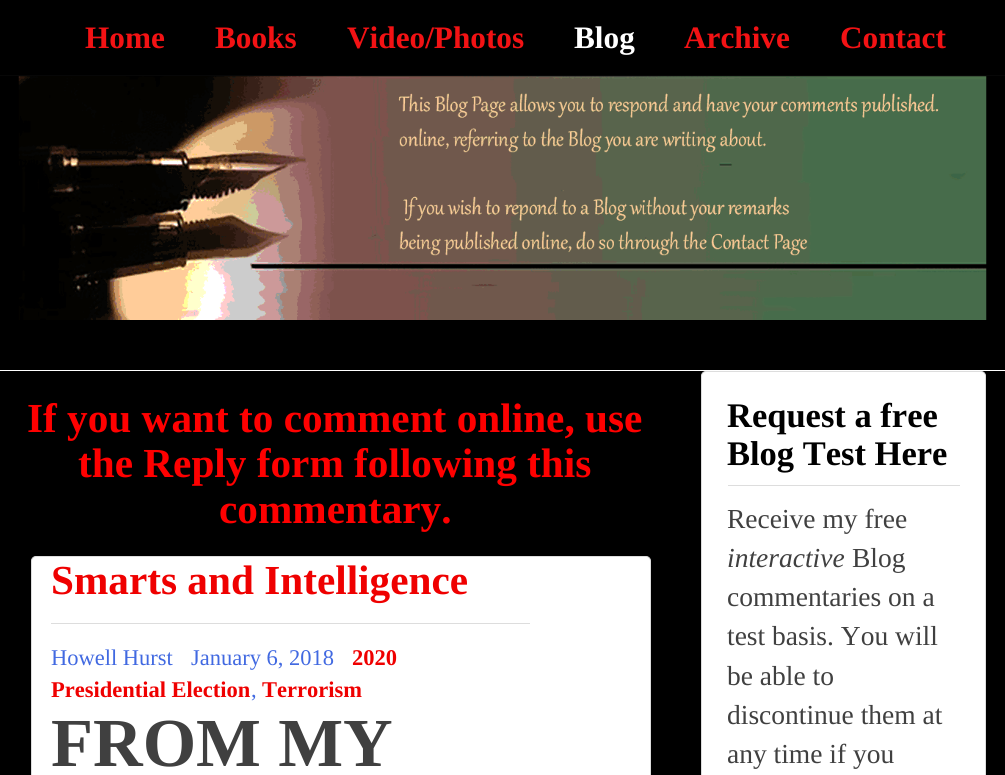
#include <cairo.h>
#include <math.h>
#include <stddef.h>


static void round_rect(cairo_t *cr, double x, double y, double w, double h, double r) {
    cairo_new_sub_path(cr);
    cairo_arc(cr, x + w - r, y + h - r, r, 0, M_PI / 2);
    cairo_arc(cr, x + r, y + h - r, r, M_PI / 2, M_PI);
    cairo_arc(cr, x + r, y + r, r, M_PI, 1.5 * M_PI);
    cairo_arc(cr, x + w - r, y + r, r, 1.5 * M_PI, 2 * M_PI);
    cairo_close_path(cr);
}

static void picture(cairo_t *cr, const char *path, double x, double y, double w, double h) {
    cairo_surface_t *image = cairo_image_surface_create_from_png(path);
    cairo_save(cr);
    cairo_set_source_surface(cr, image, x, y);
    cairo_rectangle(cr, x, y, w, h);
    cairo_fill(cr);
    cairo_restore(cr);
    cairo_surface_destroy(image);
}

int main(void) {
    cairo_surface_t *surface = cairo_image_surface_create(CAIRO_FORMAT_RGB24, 1005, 775);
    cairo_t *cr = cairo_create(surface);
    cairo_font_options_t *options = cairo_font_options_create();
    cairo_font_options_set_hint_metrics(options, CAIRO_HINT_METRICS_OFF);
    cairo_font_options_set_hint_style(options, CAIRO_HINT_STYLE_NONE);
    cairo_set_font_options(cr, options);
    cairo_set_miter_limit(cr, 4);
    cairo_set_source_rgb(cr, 0, 0, 0);
    cairo_paint(cr);
    cairo_set_source_rgb(cr, 0.031, 0.031, 0.031);
    cairo_rectangle(cr, 0, 75, 1005, 1);
    cairo_fill(cr);
    cairo_select_font_face(cr, "Liberation Serif", CAIRO_FONT_SLANT_NORMAL, CAIRO_FONT_WEIGHT_BOLD);
    cairo_set_font_size(cr, 31.25);
    cairo_set_source_rgb(cr, 0.953, 0.071, 0.082);
    cairo_move_to(cr, 85, 48);
    cairo_show_text(cr, "Home");
    cairo_move_to(cr, 215, 48);
    cairo_show_text(cr, "Books");
    cairo_move_to(cr, 347, 48);
    cairo_show_text(cr, "Video/Photos");
    cairo_set_source_rgb(cr, 1, 1, 1);
    cairo_move_to(cr, 574, 48);
    cairo_show_text(cr, "Blog");
    cairo_set_source_rgb(cr, 0.953, 0.071, 0.082);
    cairo_move_to(cr, 684, 48);
    cairo_show_text(cr, "Archive");
    cairo_move_to(cr, 840, 48);
    cairo_show_text(cr, "Contact");
    picture(cr, "img1.png", 18, 76, 969, 244);
    cairo_set_source_rgb(cr, 1, 1, 1);
    cairo_rectangle(cr, 0, 370, 1005, 1);
    cairo_fill(cr);
    cairo_set_font_size(cr, 41.25);
    cairo_set_source_rgb(cr, 1, 0, 0);
    cairo_move_to(cr, 27, 432);
    cairo_show_text(cr, "If you want to comment online, use");
    cairo_move_to(cr, 78, 477);
    cairo_show_text(cr, "the Reply form following this");
    cairo_move_to(cr, 219, 523);
    cairo_show_text(cr, "commentary.");
    cairo_set_source_rgb(cr, 1, 1, 1);
    round_rect(cr, 31.5, 556.5, 619, 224, 4.5);
    cairo_fill_preserve(cr);
    cairo_set_source_rgb(cr, 0.867, 0.867, 0.867);
    cairo_set_line_width(cr, 1);
    cairo_stroke(cr);
    cairo_rectangle(cr, 51, 623, 479, 1);
    cairo_fill(cr);
    cairo_set_source_rgb(cr, 0.937, 0, 0);
    cairo_move_to(cr, 51, 594);
    cairo_show_text(cr, "Smarts and Intelligence");
    cairo_select_font_face(cr, "Liberation Serif", CAIRO_FONT_SLANT_NORMAL, CAIRO_FONT_WEIGHT_NORMAL);
    cairo_set_font_size(cr, 22.5);
    cairo_set_source_rgb(cr, 0.255, 0.412, 0.882);
    cairo_move_to(cr, 51, 665);
    cairo_show_text(cr, "Howell Hurst");
    cairo_move_to(cr, 191, 665);
    cairo_show_text(cr, "January 6, 2018");
    cairo_select_font_face(cr, "Liberation Serif", CAIRO_FONT_SLANT_NORMAL, CAIRO_FONT_WEIGHT_BOLD);
    cairo_set_source_rgb(cr, 0.937, 0, 0);
    cairo_move_to(cr, 352, 665);
    cairo_show_text(cr, "2020");
    cairo_move_to(cr, 51, 697);
    cairo_show_text(cr, "Presidential Election");
    cairo_select_font_face(cr, "Liberation Serif", CAIRO_FONT_SLANT_NORMAL, CAIRO_FONT_WEIGHT_NORMAL);
    cairo_set_source_rgb(cr, 0.255, 0.412, 0.882);
    cairo_move_to(cr, 251, 697);
    cairo_show_text(cr, ",");
    cairo_select_font_face(cr, "Liberation Serif", CAIRO_FONT_SLANT_NORMAL, CAIRO_FONT_WEIGHT_BOLD);
    cairo_set_source_rgb(cr, 0.937, 0, 0);
    cairo_move_to(cr, 262, 697);
    cairo_show_text(cr, "Terrorism");
    cairo_set_font_size(cr, 68.75);
    cairo_set_source_rgb(cr, 0.251, 0.251, 0.251);
    cairo_move_to(cr, 51, 766);
    cairo_show_text(cr, "FROM MY");
    cairo_set_source_rgb(cr, 1, 1, 1);
    round_rect(cr, 701.5, 371.5, 284, 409, 4.5);
    cairo_fill_preserve(cr);
    cairo_set_source_rgb(cr, 0.867, 0.867, 0.867);
    cairo_stroke(cr);
    cairo_rectangle(cr, 728, 485, 232, 1);
    cairo_fill(cr);
    cairo_set_font_size(cr, 34.5);
    cairo_set_source_rgb(cr, 0, 0, 0);
    cairo_move_to(cr, 727, 427);
    cairo_show_text(cr, "Request a free");
    cairo_move_to(cr, 727, 465);
    cairo_show_text(cr, "Blog Test Here");
    cairo_select_font_face(cr, "Liberation Serif", CAIRO_FONT_SLANT_NORMAL, CAIRO_FONT_WEIGHT_NORMAL);
    cairo_set_font_size(cr, 27.5);
    cairo_set_source_rgb(cr, 0.251, 0.251, 0.251);
    cairo_move_to(cr, 727, 528);
    cairo_show_text(cr, "Receive my free");
    cairo_select_font_face(cr, "Liberation Serif", CAIRO_FONT_SLANT_ITALIC, CAIRO_FONT_WEIGHT_NORMAL);
    cairo_move_to(cr, 727, 567);
    cairo_show_text(cr, "interactive");
    cairo_select_font_face(cr, "Liberation Serif", CAIRO_FONT_SLANT_NORMAL, CAIRO_FONT_WEIGHT_NORMAL);
    cairo_move_to(cr, 852, 567);
    cairo_show_text(cr, "Blog");
    cairo_move_to(cr, 727, 606);
    cairo_show_text(cr, "commentaries on a");
    cairo_move_to(cr, 727, 645);
    cairo_show_text(cr, "test basis. You will");
    cairo_move_to(cr, 727, 685);
    cairo_show_text(cr, "be able to");
    cairo_move_to(cr, 727, 724);
    cairo_show_text(cr, "discontinue them at");
    cairo_move_to(cr, 727, 763);
    cairo_show_text(cr, "any time if you");
    cairo_surface_write_to_png(surface, "page.png");
    cairo_font_options_destroy(options);
    cairo_destroy(cr);
    cairo_surface_destroy(surface);
    return 0;
}
